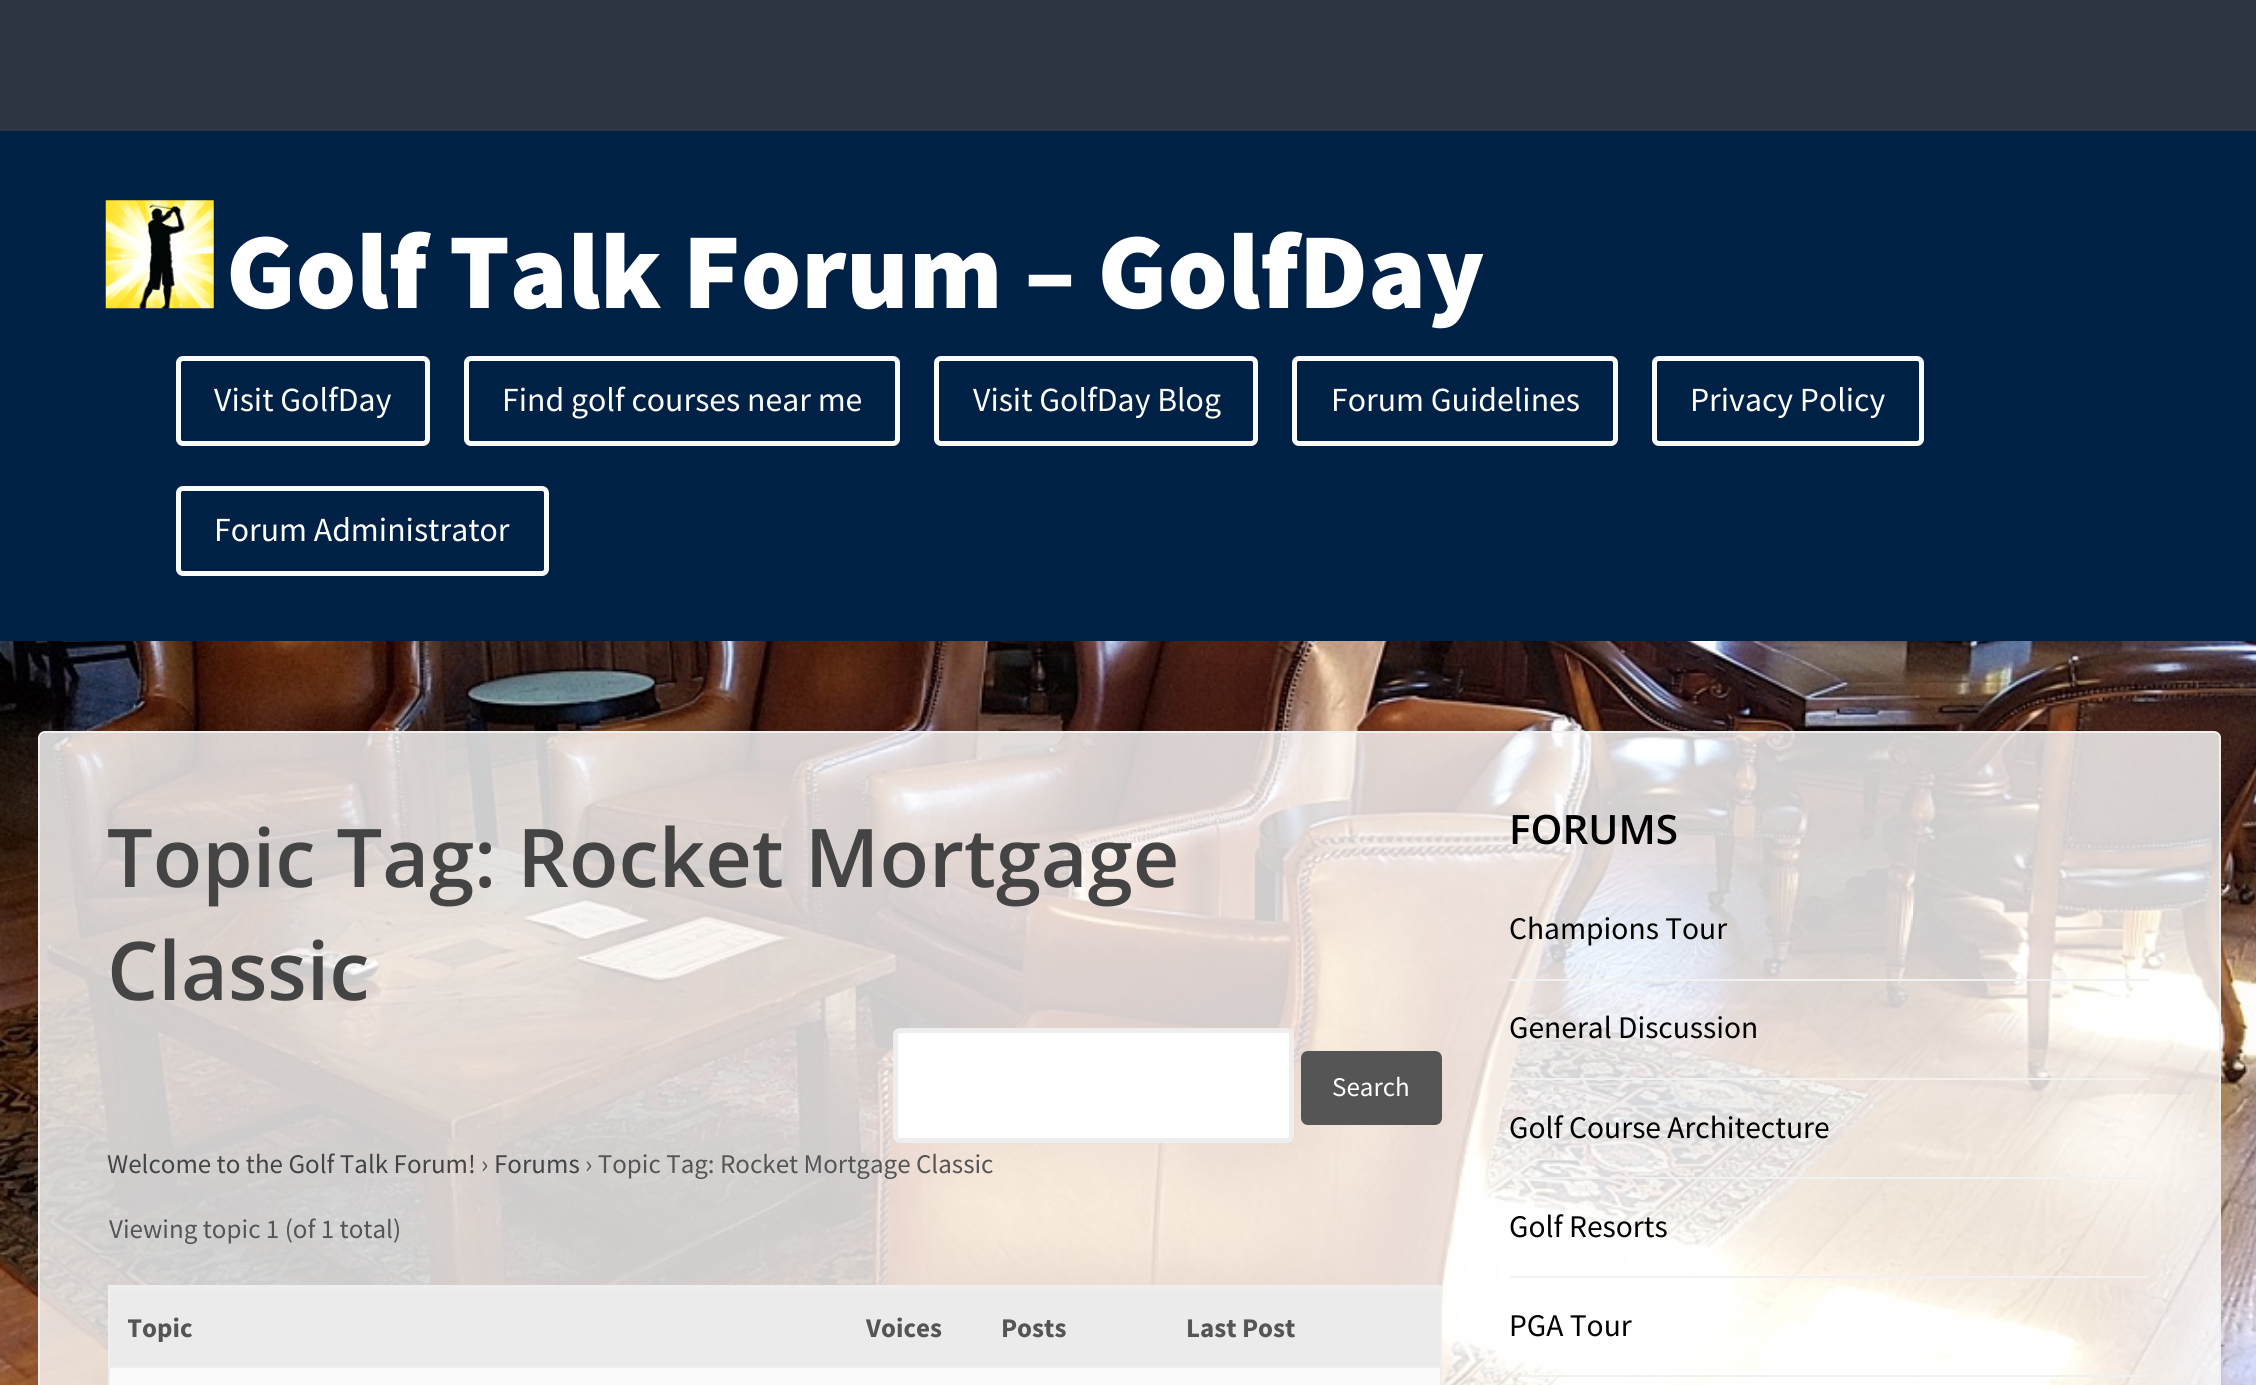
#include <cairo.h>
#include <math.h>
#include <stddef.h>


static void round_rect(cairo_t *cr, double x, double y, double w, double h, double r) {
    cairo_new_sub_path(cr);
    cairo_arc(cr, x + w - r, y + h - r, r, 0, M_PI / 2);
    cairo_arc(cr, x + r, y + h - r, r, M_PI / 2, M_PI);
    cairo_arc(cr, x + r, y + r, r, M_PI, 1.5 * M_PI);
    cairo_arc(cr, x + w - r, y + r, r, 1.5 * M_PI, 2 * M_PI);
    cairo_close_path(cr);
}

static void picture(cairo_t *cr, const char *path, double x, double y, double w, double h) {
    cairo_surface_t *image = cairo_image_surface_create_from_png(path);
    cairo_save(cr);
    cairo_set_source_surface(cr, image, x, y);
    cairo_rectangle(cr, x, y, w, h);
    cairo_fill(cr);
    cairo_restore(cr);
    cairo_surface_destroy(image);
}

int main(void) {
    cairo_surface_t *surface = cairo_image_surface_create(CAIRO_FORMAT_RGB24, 2256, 1385);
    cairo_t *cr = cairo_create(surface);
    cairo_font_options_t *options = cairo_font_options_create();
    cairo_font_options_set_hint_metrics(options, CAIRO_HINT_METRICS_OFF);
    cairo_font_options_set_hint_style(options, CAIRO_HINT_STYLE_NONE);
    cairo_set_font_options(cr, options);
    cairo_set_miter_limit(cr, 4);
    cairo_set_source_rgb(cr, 1, 1, 1);
    cairo_paint(cr);
    picture(cr, "img1.png", 0, 641, 2256, 744);
    cairo_set_source_rgb(cr, 0.176, 0.212, 0.259);
    cairo_rectangle(cr, 0, 0, 2256, 131);
    cairo_fill(cr);
    cairo_set_source_rgb(cr, 0, 0.129, 0.275);
    cairo_rectangle(cr, 0, 131, 2256, 510);
    cairo_fill(cr);
    picture(cr, "img2.png", 105, 200, 109, 109);
    cairo_select_font_face(cr, "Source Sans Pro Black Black", CAIRO_FONT_SLANT_NORMAL, CAIRO_FONT_WEIGHT_NORMAL);
    cairo_set_font_size(cr, 108);
    cairo_set_source_rgb(cr, 1, 1, 1);
    cairo_move_to(cr, 226, 308);
    cairo_show_text(cr, "Golf Talk Forum – GolfDay");
    round_rect(cr, 178.5, 358.5, 249, 85, 4.5);
    cairo_set_source_rgb(cr, 0.98, 0.984, 0.984);
    cairo_set_line_width(cr, 5);
    cairo_stroke(cr);
    cairo_select_font_face(cr, "Source Sans Pro", CAIRO_FONT_SLANT_NORMAL, CAIRO_FONT_WEIGHT_NORMAL);
    cairo_set_font_size(cr, 33.75);
    cairo_set_source_rgb(cr, 1, 1, 1);
    cairo_move_to(cr, 214, 411);
    cairo_show_text(cr, "Visit GolfDay");
    round_rect(cr, 466.5, 358.5, 431, 85, 4.5);
    cairo_set_source_rgb(cr, 0.98, 0.984, 0.984);
    cairo_stroke(cr);
    cairo_set_source_rgb(cr, 1, 1, 1);
    cairo_move_to(cr, 502, 411);
    cairo_show_text(cr, "Find golf courses near me");
    round_rect(cr, 936.5, 358.5, 319, 85, 4.5);
    cairo_set_source_rgb(cr, 0.98, 0.984, 0.984);
    cairo_stroke(cr);
    cairo_set_source_rgb(cr, 1, 1, 1);
    cairo_move_to(cr, 973, 411);
    cairo_show_text(cr, "Visit GolfDay Blog");
    round_rect(cr, 1294.5, 358.5, 321, 85, 4.5);
    cairo_set_source_rgb(cr, 0.98, 0.984, 0.984);
    cairo_stroke(cr);
    cairo_set_source_rgb(cr, 1, 1, 1);
    cairo_move_to(cr, 1331, 411);
    cairo_show_text(cr, "Forum Guidelines");
    round_rect(cr, 1654.5, 358.5, 267, 85, 4.5);
    cairo_set_source_rgb(cr, 0.98, 0.984, 0.984);
    cairo_stroke(cr);
    cairo_set_source_rgb(cr, 1, 1, 1);
    cairo_move_to(cr, 1690, 411);
    cairo_show_text(cr, "Privacy Policy");
    round_rect(cr, 178.5, 488.5, 368, 85, 4.5);
    cairo_set_source_rgb(cr, 0.98, 0.984, 0.984);
    cairo_stroke(cr);
    cairo_set_source_rgb(cr, 1, 1, 1);
    cairo_move_to(cr, 214, 541);
    cairo_show_text(cr, "Forum Administrator");
    cairo_set_source_rgba(cr, 1, 1, 1, 0.8);
    round_rect(cr, 39, 732, 2181, 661, 6);
    cairo_fill_preserve(cr);
    cairo_set_source_rgb(cr, 0.941, 0.941, 0.941);
    cairo_set_line_width(cr, 2);
    cairo_stroke(cr);
    cairo_select_font_face(cr, "Open Sans SemiBold", CAIRO_FONT_SLANT_NORMAL, CAIRO_FONT_WEIGHT_NORMAL);
    cairo_set_font_size(cr, 81);
    cairo_set_source_rgb(cr, 0.267, 0.267, 0.267);
    cairo_move_to(cr, 107, 887);
    cairo_show_text(cr, "Topic Tag: Rocket Mortgage");
    cairo_move_to(cr, 107, 1000);
    cairo_show_text(cr, "Classic");
    cairo_set_source_rgb(cr, 1, 1, 1);
    round_rect(cr, 895.5, 1030.5, 396, 110, 4.5);
    cairo_fill_preserve(cr);
    cairo_set_source_rgb(cr, 0.933, 0.933, 0.933);
    cairo_set_line_width(cr, 5);
    cairo_stroke(cr);
    cairo_set_source_rgb(cr, 0.333, 0.333, 0.333);
    round_rect(cr, 1301, 1051, 141, 74, 7);
    cairo_fill(cr);
    cairo_select_font_face(cr, "Source Sans Pro", CAIRO_FONT_SLANT_NORMAL, CAIRO_FONT_WEIGHT_NORMAL);
    cairo_set_font_size(cr, 27);
    cairo_set_source_rgb(cr, 1, 1, 1);
    cairo_move_to(cr, 1332, 1096);
    cairo_show_text(cr, "Search");
    cairo_set_source_rgb(cr, 0.267, 0.267, 0.267);
    cairo_move_to(cr, 107, 1173);
    cairo_show_text(cr, "Welcome to the Golf Talk Forum!");
    cairo_set_source_rgb(cr, 0.333, 0.333, 0.333);
    cairo_move_to(cr, 481, 1173);
    cairo_show_text(cr, "›");
    cairo_set_source_rgb(cr, 0.267, 0.267, 0.267);
    cairo_move_to(cr, 494, 1173);
    cairo_show_text(cr, "Forums");
    cairo_set_source_rgb(cr, 0.333, 0.333, 0.333);
    cairo_move_to(cr, 585, 1173);
    cairo_show_text(cr, "› Topic Tag: Rocket Mortgage Classic");
    cairo_move_to(cr, 109, 1238);
    cairo_show_text(cr, "Viewing topic 1 (of 1 total)");
    cairo_rectangle(cr, 109, 1286, 1332, 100);
    cairo_set_source_rgb(cr, 0.933, 0.933, 0.933);
    cairo_set_line_width(cr, 2);
    cairo_stroke(cr);
    cairo_set_source_rgb(cr, 0.918, 0.918, 0.918);
    cairo_rectangle(cr, 110, 1289, 1330, 77);
    cairo_fill(cr);
    cairo_set_source_rgb(cr, 0.933, 0.933, 0.933);
    cairo_rectangle(cr, 110, 1287, 1330, 2);
    cairo_fill(cr);
    cairo_save(cr);
    cairo_rectangle(cr, 128, 1307, 1294, 41);
    cairo_clip(cr);
    cairo_select_font_face(cr, "Source Sans Pro", CAIRO_FONT_SLANT_NORMAL, CAIRO_FONT_WEIGHT_BOLD);
    cairo_set_source_rgb(cr, 0.333, 0.333, 0.333);
    cairo_move_to(cr, 127, 1337);
    cairo_show_text(cr, "Topic");
    cairo_restore(cr);
    cairo_select_font_face(cr, "Source Sans Pro", CAIRO_FONT_SLANT_NORMAL, CAIRO_FONT_WEIGHT_BOLD);
    cairo_set_source_rgb(cr, 0.333, 0.333, 0.333);
    cairo_move_to(cr, 866, 1337);
    cairo_show_text(cr, "Voices");
    cairo_move_to(cr, 1001, 1337);
    cairo_show_text(cr, "Posts");
    cairo_move_to(cr, 1186, 1337);
    cairo_show_text(cr, "Last Post");
    cairo_set_source_rgb(cr, 0.984, 0.984, 0.984);
    cairo_rectangle(cr, 110, 1368, 1330, 17);
    cairo_fill(cr);
    cairo_set_source_rgb(cr, 0.933, 0.933, 0.933);
    cairo_rectangle(cr, 110, 1366, 1330, 2);
    cairo_fill(cr);
    cairo_select_font_face(cr, "Open Sans SemiBold", CAIRO_FONT_SLANT_NORMAL, CAIRO_FONT_WEIGHT_NORMAL);
    cairo_set_font_size(cr, 40.5);
    cairo_set_source_rgb(cr, 0, 0, 0);
    cairo_move_to(cr, 1509, 844);
    cairo_show_text(cr, "FORUMS");
    cairo_set_source_rgb(cr, 0.945, 0.945, 0.945);
    cairo_rectangle(cr, 1510, 979, 639, 2);
    cairo_fill(cr);
    cairo_select_font_face(cr, "Source Sans Pro", CAIRO_FONT_SLANT_NORMAL, CAIRO_FONT_WEIGHT_NORMAL);
    cairo_set_font_size(cr, 31.5);
    cairo_set_source_rgb(cr, 0, 0, 0);
    cairo_move_to(cr, 1509, 939);
    cairo_show_text(cr, "Champions Tour");
    cairo_set_source_rgb(cr, 0.945, 0.945, 0.945);
    cairo_rectangle(cr, 1510, 1078, 639, 2);
    cairo_fill(cr);
    cairo_set_source_rgb(cr, 0, 0, 0);
    cairo_move_to(cr, 1509, 1038);
    cairo_show_text(cr, "General Discussion");
    cairo_set_source_rgb(cr, 0.945, 0.945, 0.945);
    cairo_rectangle(cr, 1510, 1177, 639, 2);
    cairo_fill(cr);
    cairo_set_source_rgb(cr, 0, 0, 0);
    cairo_move_to(cr, 1509, 1138);
    cairo_show_text(cr, "Golf Course Architecture");
    cairo_set_source_rgb(cr, 0.945, 0.945, 0.945);
    cairo_rectangle(cr, 1510, 1276, 639, 2);
    cairo_fill(cr);
    cairo_set_source_rgb(cr, 0, 0, 0);
    cairo_move_to(cr, 1509, 1237);
    cairo_show_text(cr, "Golf Resorts");
    cairo_set_source_rgb(cr, 0.945, 0.945, 0.945);
    cairo_rectangle(cr, 1510, 1375, 639, 2);
    cairo_fill(cr);
    cairo_set_source_rgb(cr, 0, 0, 0);
    cairo_move_to(cr, 1509, 1336);
    cairo_show_text(cr, "PGA Tour");
    cairo_surface_write_to_png(surface, "page.png");
    cairo_font_options_destroy(options);
    cairo_destroy(cr);
    cairo_surface_destroy(surface);
    return 0;
}
